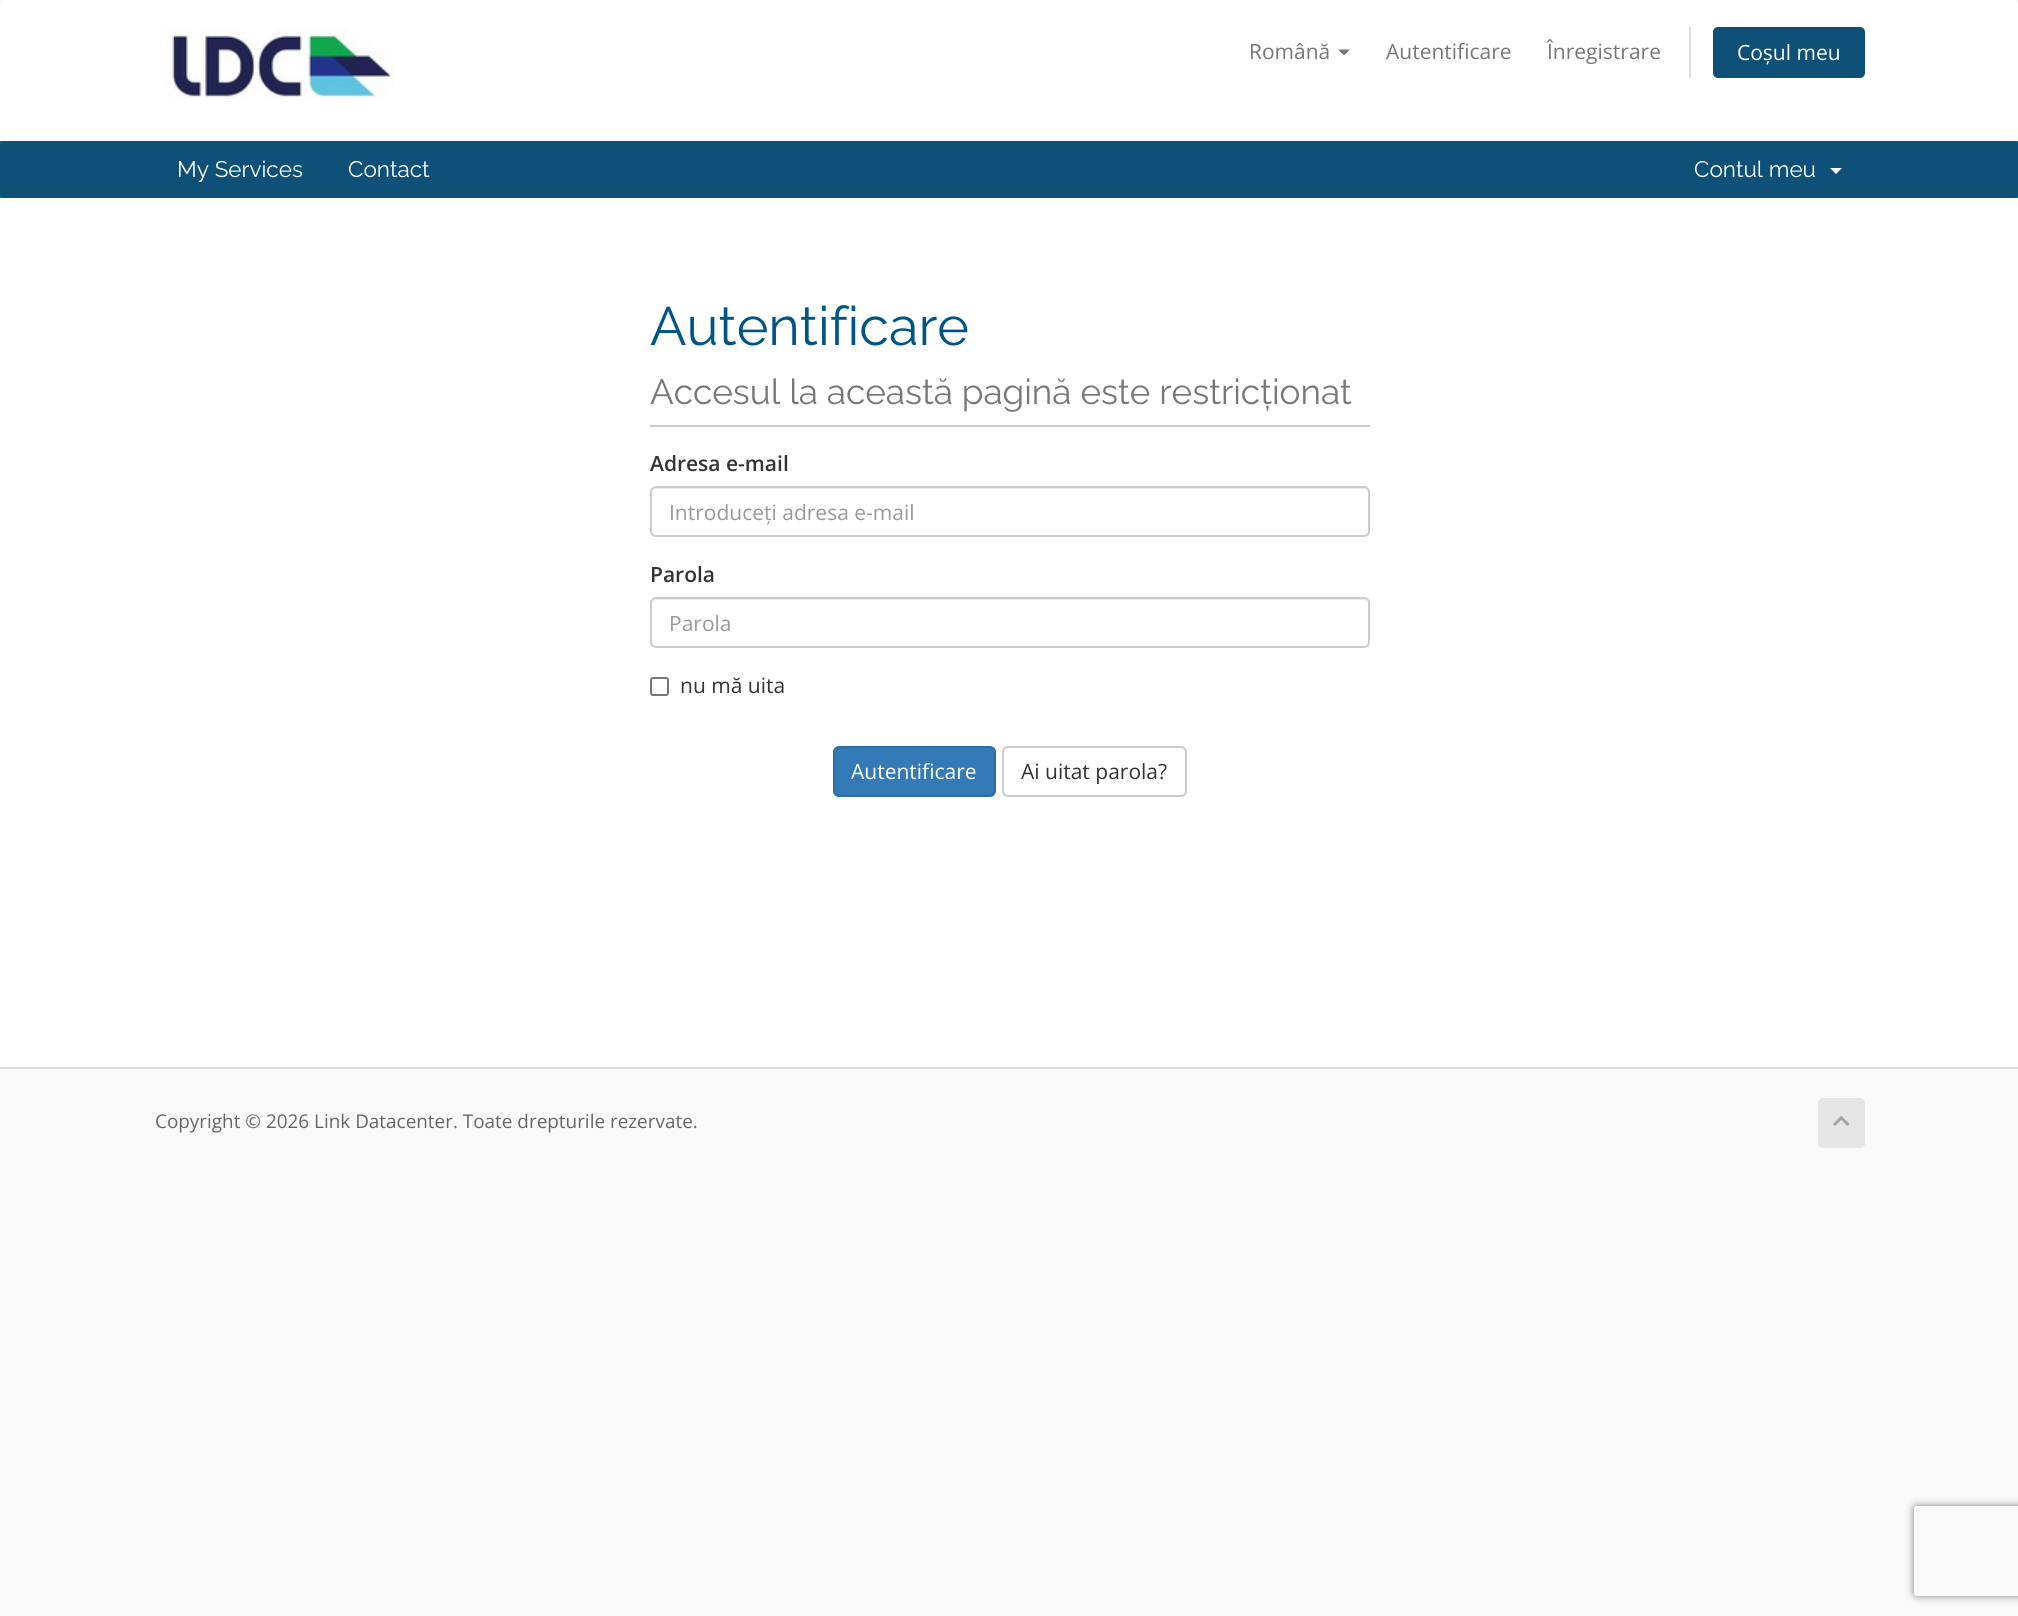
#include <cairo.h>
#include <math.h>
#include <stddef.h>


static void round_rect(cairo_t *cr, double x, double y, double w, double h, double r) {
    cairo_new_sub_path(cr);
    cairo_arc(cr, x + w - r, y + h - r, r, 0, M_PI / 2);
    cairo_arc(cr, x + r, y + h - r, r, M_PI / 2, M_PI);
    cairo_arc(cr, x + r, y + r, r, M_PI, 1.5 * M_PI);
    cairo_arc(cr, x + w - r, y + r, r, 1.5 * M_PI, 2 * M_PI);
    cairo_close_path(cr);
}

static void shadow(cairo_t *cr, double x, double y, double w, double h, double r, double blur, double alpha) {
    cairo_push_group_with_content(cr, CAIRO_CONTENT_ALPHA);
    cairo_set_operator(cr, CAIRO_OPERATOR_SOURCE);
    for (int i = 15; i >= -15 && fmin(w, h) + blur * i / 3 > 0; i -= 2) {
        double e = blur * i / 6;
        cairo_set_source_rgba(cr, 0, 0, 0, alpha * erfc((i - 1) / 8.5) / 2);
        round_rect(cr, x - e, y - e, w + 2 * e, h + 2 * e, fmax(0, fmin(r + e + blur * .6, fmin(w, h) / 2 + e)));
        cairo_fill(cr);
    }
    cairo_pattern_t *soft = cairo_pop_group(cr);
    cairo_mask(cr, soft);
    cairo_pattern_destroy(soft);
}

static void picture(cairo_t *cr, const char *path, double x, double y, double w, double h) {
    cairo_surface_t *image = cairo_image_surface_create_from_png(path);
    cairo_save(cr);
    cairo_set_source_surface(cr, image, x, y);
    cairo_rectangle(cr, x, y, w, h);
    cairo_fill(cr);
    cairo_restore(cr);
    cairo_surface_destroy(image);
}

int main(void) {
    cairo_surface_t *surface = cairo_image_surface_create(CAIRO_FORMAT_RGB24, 2018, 1616);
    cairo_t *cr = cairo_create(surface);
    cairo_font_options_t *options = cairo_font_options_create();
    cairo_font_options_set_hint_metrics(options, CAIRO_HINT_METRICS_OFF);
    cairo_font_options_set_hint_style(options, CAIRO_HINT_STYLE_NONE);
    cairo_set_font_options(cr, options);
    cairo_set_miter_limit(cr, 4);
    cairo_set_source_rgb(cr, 0.973, 0.973, 0.973);
    cairo_paint(cr);
    cairo_set_source_rgb(cr, 1, 1, 1);
    cairo_new_path(cr);
    cairo_move_to(cr, 8, 0);
    cairo_line_to(cr, 2011, 0);
    cairo_curve_to(cr, 2015.5, 0, 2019, 3.5, 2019, 8);
    cairo_line_to(cr, 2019, 141);
    cairo_line_to(cr, 0, 141);
    cairo_line_to(cr, 0, 8);
    cairo_curve_to(cr, 0, 3.5, 3.5, 0, 8, 0);
    cairo_close_path(cr);
    cairo_fill(cr);
    picture(cr, "img1.png", 155, 27, 240, 72);
    cairo_select_font_face(cr, "Open Sans", CAIRO_FONT_SLANT_NORMAL, CAIRO_FONT_WEIGHT_NORMAL);
    cairo_set_font_size(cr, 21);
    cairo_set_source_rgb(cr, 0.467, 0.467, 0.467);
    cairo_move_to(cr, 1249, 59);
    cairo_show_text(cr, "Română");
    cairo_new_path(cr);
    cairo_move_to(cr, 1338, 49.5);
    cairo_line_to(cr, 1350, 49.5);
    cairo_line_to(cr, 1344, 55.5);
    cairo_close_path(cr);
    cairo_fill(cr);
    cairo_move_to(cr, 1386, 59);
    cairo_show_text(cr, "Autentificare");
    cairo_move_to(cr, 1547, 59);
    cairo_show_text(cr, "Înregistrare");
    cairo_set_source_rgb(cr, 0.867, 0.867, 0.867);
    cairo_rectangle(cr, 1689, 27, 2, 51);
    cairo_fill(cr);
    cairo_set_source_rgb(cr, 0.055, 0.314, 0.467);
    round_rect(cr, 1713, 27, 152, 51, 5);
    cairo_fill(cr);
    cairo_set_source_rgb(cr, 1, 1, 1);
    cairo_move_to(cr, 1737, 60);
    cairo_show_text(cr, "Coșul meu");
    cairo_set_source_rgb(cr, 0, 0.4, 0.529);
    cairo_rectangle(cr, 0, 141, 2018, 57);
    cairo_fill(cr);
    cairo_set_source_rgb(cr, 0.055, 0.314, 0.467);
    round_rect(cr, 0, 141, 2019, 57, 6);
    cairo_fill(cr);
    cairo_select_font_face(cr, "Raleway", CAIRO_FONT_SLANT_NORMAL, CAIRO_FONT_WEIGHT_NORMAL);
    cairo_set_font_size(cr, 22.5);
    cairo_set_source_rgb(cr, 1, 1, 1);
    cairo_move_to(cr, 177, 177);
    cairo_show_text(cr, "My Services");
    cairo_move_to(cr, 348, 177);
    cairo_show_text(cr, "Contact");
    cairo_move_to(cr, 1694, 177);
    cairo_show_text(cr, "Contul meu");
    cairo_new_path(cr);
    cairo_move_to(cr, 1830, 168);
    cairo_line_to(cr, 1842, 168);
    cairo_line_to(cr, 1836, 174);
    cairo_close_path(cr);
    cairo_fill(cr);
    cairo_rectangle(cr, 0, 198, 2018, 869);
    cairo_fill(cr);
    cairo_set_source_rgb(cr, 0.8, 0.8, 0.8);
    cairo_rectangle(cr, 650, 425, 720, 2);
    cairo_fill(cr);
    cairo_set_font_size(cr, 54);
    cairo_set_source_rgb(cr, 0, 0.333, 0.533);
    cairo_move_to(cr, 650, 345);
    cairo_show_text(cr, "Autentificare");
    cairo_set_font_size(cr, 35.1);
    cairo_set_source_rgb(cr, 0.467, 0.467, 0.467);
    cairo_move_to(cr, 650, 404);
    cairo_show_text(cr, "Accesul la această pagină este restricționat");
    cairo_select_font_face(cr, "Open Sans SemiBold", CAIRO_FONT_SLANT_NORMAL, CAIRO_FONT_WEIGHT_NORMAL);
    cairo_set_font_size(cr, 21);
    cairo_set_source_rgb(cr, 0.2, 0.2, 0.2);
    cairo_move_to(cr, 650, 471);
    cairo_show_text(cr, "Adresa e-mail");
    cairo_set_source_rgb(cr, 0.925, 0.925, 0.925);
    cairo_new_path(cr);
    cairo_move_to(cr, 656, 489);
    cairo_line_to(cr, 1364, 489);
    cairo_curve_to(cr, 1366, 489, 1368, 491, 1368, 494);
    cairo_curve_to(cr, 1368, 491, 1366, 488, 1363, 488);
    cairo_line_to(cr, 656, 488);
    cairo_curve_to(cr, 653, 488, 651, 491, 651, 494);
    cairo_curve_to(cr, 651, 491, 653, 489, 656, 489);
    cairo_close_path(cr);
    cairo_fill(cr);
    round_rect(cr, 651, 487, 718, 49, 5);
    cairo_set_source_rgb(cr, 0.8, 0.8, 0.8);
    cairo_stroke(cr);
    cairo_select_font_face(cr, "Open Sans", CAIRO_FONT_SLANT_NORMAL, CAIRO_FONT_WEIGHT_NORMAL);
    cairo_set_source_rgb(cr, 0.6, 0.6, 0.6);
    cairo_move_to(cr, 669, 520);
    cairo_show_text(cr, "Introduceți adresa e-mail");
    cairo_select_font_face(cr, "Open Sans SemiBold", CAIRO_FONT_SLANT_NORMAL, CAIRO_FONT_WEIGHT_NORMAL);
    cairo_set_source_rgb(cr, 0.2, 0.2, 0.2);
    cairo_move_to(cr, 650, 582);
    cairo_show_text(cr, "Parola");
    cairo_set_source_rgb(cr, 0.925, 0.925, 0.925);
    cairo_new_path(cr);
    cairo_move_to(cr, 656, 600);
    cairo_line_to(cr, 1364, 600);
    cairo_curve_to(cr, 1366, 600, 1368, 602, 1368, 604);
    cairo_curve_to(cr, 1368, 601, 1366, 599, 1363, 599);
    cairo_line_to(cr, 656, 599);
    cairo_curve_to(cr, 653, 599, 651, 601, 651, 604);
    cairo_curve_to(cr, 651, 602, 653, 600, 656, 600);
    cairo_close_path(cr);
    cairo_fill(cr);
    round_rect(cr, 651, 598, 718, 49, 5);
    cairo_set_source_rgb(cr, 0.8, 0.8, 0.8);
    cairo_stroke(cr);
    cairo_select_font_face(cr, "Open Sans", CAIRO_FONT_SLANT_NORMAL, CAIRO_FONT_WEIGHT_NORMAL);
    cairo_set_source_rgb(cr, 0.6, 0.6, 0.6);
    cairo_move_to(cr, 669, 631);
    cairo_show_text(cr, "Parola");
    round_rect(cr, 651, 678, 17, 17, 2);
    cairo_set_source_rgb(cr, 0.463, 0.463, 0.463);
    cairo_stroke(cr);
    cairo_set_source_rgb(cr, 0.2, 0.2, 0.2);
    cairo_move_to(cr, 680, 693);
    cairo_show_text(cr, "nu mă uita");
    cairo_set_source_rgb(cr, 0.2, 0.478, 0.718);
    round_rect(cr, 834, 747, 161, 49, 5);
    cairo_fill_preserve(cr);
    cairo_set_source_rgb(cr, 0.18, 0.427, 0.643);
    cairo_stroke(cr);
    cairo_set_source_rgb(cr, 1, 1, 1);
    cairo_move_to(cr, 851, 779);
    cairo_show_text(cr, "Autentificare");
    round_rect(cr, 1003, 747, 183, 49, 5);
    cairo_set_source_rgb(cr, 0.8, 0.8, 0.8);
    cairo_stroke(cr);
    cairo_set_source_rgb(cr, 0.2, 0.2, 0.2);
    cairo_move_to(cr, 1021, 779);
    cairo_show_text(cr, "Ai uitat parola?");
    cairo_save(cr);
    cairo_set_fill_rule(cr, CAIRO_FILL_RULE_EVEN_ODD);
    cairo_new_path(cr);
    cairo_move_to(cr, 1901, 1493);
    cairo_line_to(cr, 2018, 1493);
    cairo_line_to(cr, 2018, 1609);
    cairo_line_to(cr, 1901, 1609);
    cairo_close_path(cr);
    cairo_move_to(cr, 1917, 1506);
    cairo_line_to(cr, 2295, 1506);
    cairo_curve_to(cr, 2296.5, 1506, 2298, 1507.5, 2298, 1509);
    cairo_line_to(cr, 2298, 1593);
    cairo_curve_to(cr, 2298, 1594.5, 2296.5, 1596, 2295, 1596);
    cairo_line_to(cr, 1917, 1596);
    cairo_curve_to(cr, 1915.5, 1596, 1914, 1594.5, 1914, 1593);
    cairo_line_to(cr, 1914, 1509);
    cairo_curve_to(cr, 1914, 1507.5, 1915.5, 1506, 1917, 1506);
    cairo_close_path(cr);
    cairo_clip(cr);
    cairo_set_source_rgb(cr, 0.502, 0.502, 0.502);
    shadow(cr, 1914, 1506, 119, 90, 3, 4, 1);
    cairo_restore(cr);
    cairo_set_source_rgb(cr, 0.867, 0.867, 0.867);
    cairo_rectangle(cr, 0, 1067, 2018, 2);
    cairo_fill(cr);
    cairo_set_font_size(cr, 18.9);
    cairo_set_source_rgb(cr, 0.4, 0.4, 0.4);
    cairo_move_to(cr, 155, 1128);
    cairo_show_text(cr, "Copyright © 2026 Link Datacenter. Toate drepturile rezervate.");
    cairo_set_source_rgb(cr, 0.898, 0.898, 0.898);
    round_rect(cr, 1818, 1098, 47, 50, 5);
    cairo_fill(cr);
    picture(cr, "img2.png", 1833, 1116, 17, 10);
    cairo_surface_write_to_png(surface, "page.png");
    cairo_font_options_destroy(options);
    cairo_destroy(cr);
    cairo_surface_destroy(surface);
    return 0;
}
